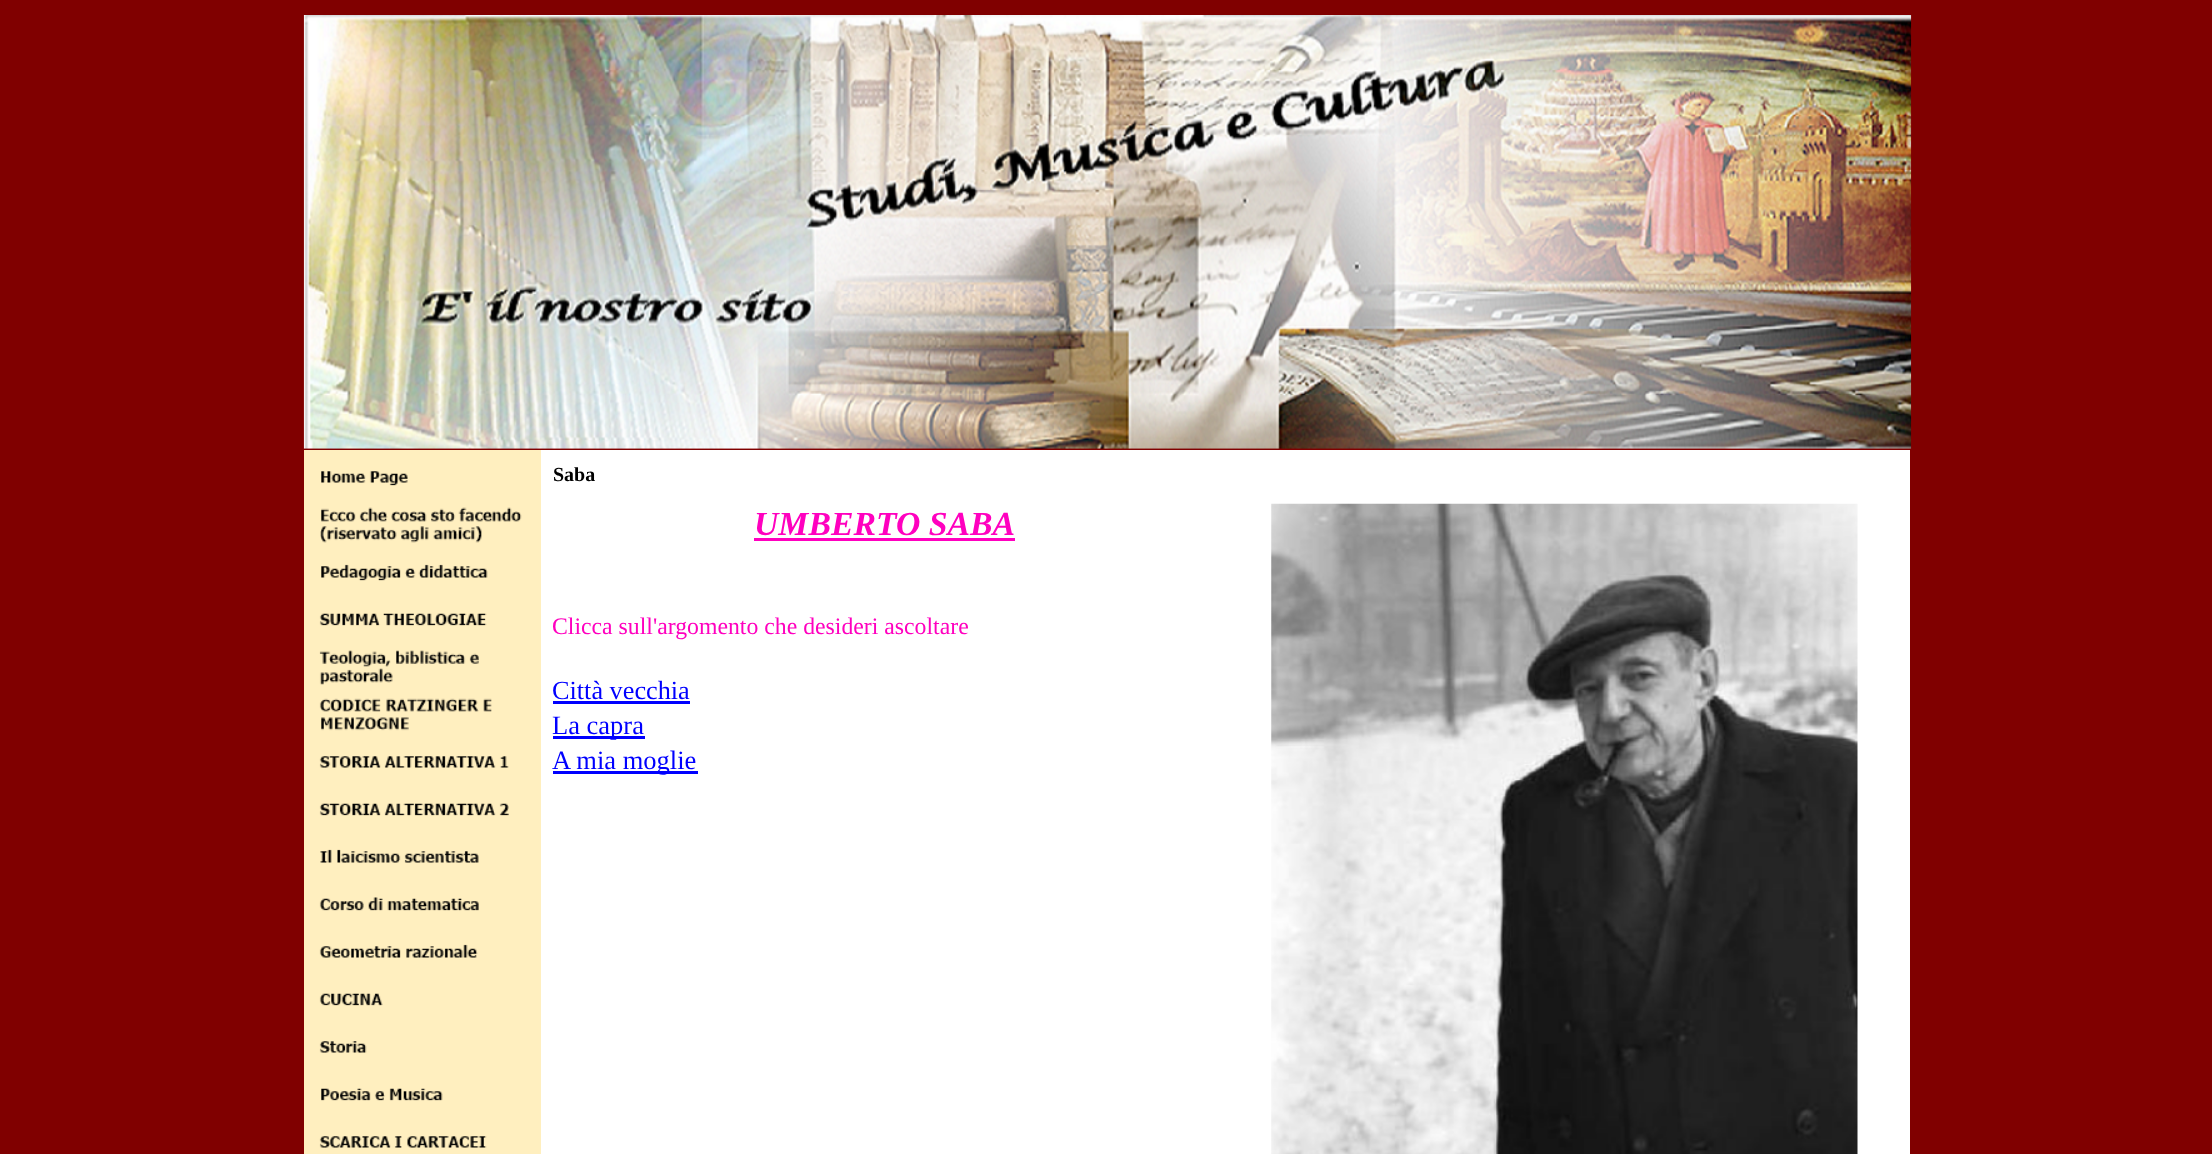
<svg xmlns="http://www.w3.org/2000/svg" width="2212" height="1154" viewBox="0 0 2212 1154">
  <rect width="100%" height="100%" fill="#800000"/>
  <image x="303" y="15" width="1609" height="434" href="img1.png"/>
  <rect x="304" y="450" width="237" height="704" fill="#ffefbf"/>
  <rect x="541" y="450" width="1369" height="704" fill="#ffffff"/>
  <image x="321" y="471" width="87" height="15" href="img2.png"/>
  <image x="320" y="507" width="202" height="36" href="img3.png"/>
  <image x="321" y="564" width="167" height="17" href="img4.png"/>
  <image x="319" y="613" width="168" height="13" href="img5.png"/>
  <image x="319" y="650" width="160" height="35" href="img6.png"/>
  <image x="319" y="698" width="173" height="33" href="img7.png"/>
  <image x="319" y="756" width="190" height="12" href="img8.png"/>
  <image x="319" y="803" width="190" height="13" href="img9.png"/>
  <image x="320" y="849" width="159" height="14" href="img10.png"/>
  <image x="319" y="897" width="160" height="14" href="img11.png"/>
  <image x="319" y="944" width="159" height="14" href="img12.png"/>
  <image x="319" y="993" width="64" height="13" href="img13.png"/>
  <image x="319" y="1041" width="48" height="12" href="img14.png"/>
  <image x="321" y="1088" width="122" height="13" href="img15.png"/>
  <image x="319" y="1136" width="168" height="12" href="img16.png"/>
  <text x="553" y="481" font-family="Liberation Serif" font-size="20" font-weight="bold" fill="#000000">Saba</text>
  <text x="754" y="535" font-family="Liberation Serif" font-size="33.75" font-weight="bold" font-style="italic" fill="#ff00bf">UMBERTO SABA</text>
  <rect x="754" y="538" width="261" height="3" fill="#ff00bf"/>
  <text x="552" y="634" font-family="Liberation Serif" font-size="23.75" fill="#ff00bf">Clicca sull'argomento che desideri ascoltare</text>
  <text x="552" y="699" font-family="Liberation Serif" font-size="26.25" fill="#0000ff">Città vecchia</text>
  <rect x="553" y="701" width="137" height="3" fill="#0000ff"/>
  <rect x="553" y="736" width="92" height="3" fill="#0000ff"/>
  <text x="552" y="734" font-family="Liberation Serif" font-size="26.5" fill="#0000ff">La capra</text>
  <rect x="553" y="771" width="145" height="3" fill="#0000ff"/>
  <text x="552" y="769" font-family="Liberation Serif" font-size="26.5" fill="#0000ff">A mia moglie</text>
  <image x="1271" y="503" width="587" height="651" href="img17.png"/>
</svg>
